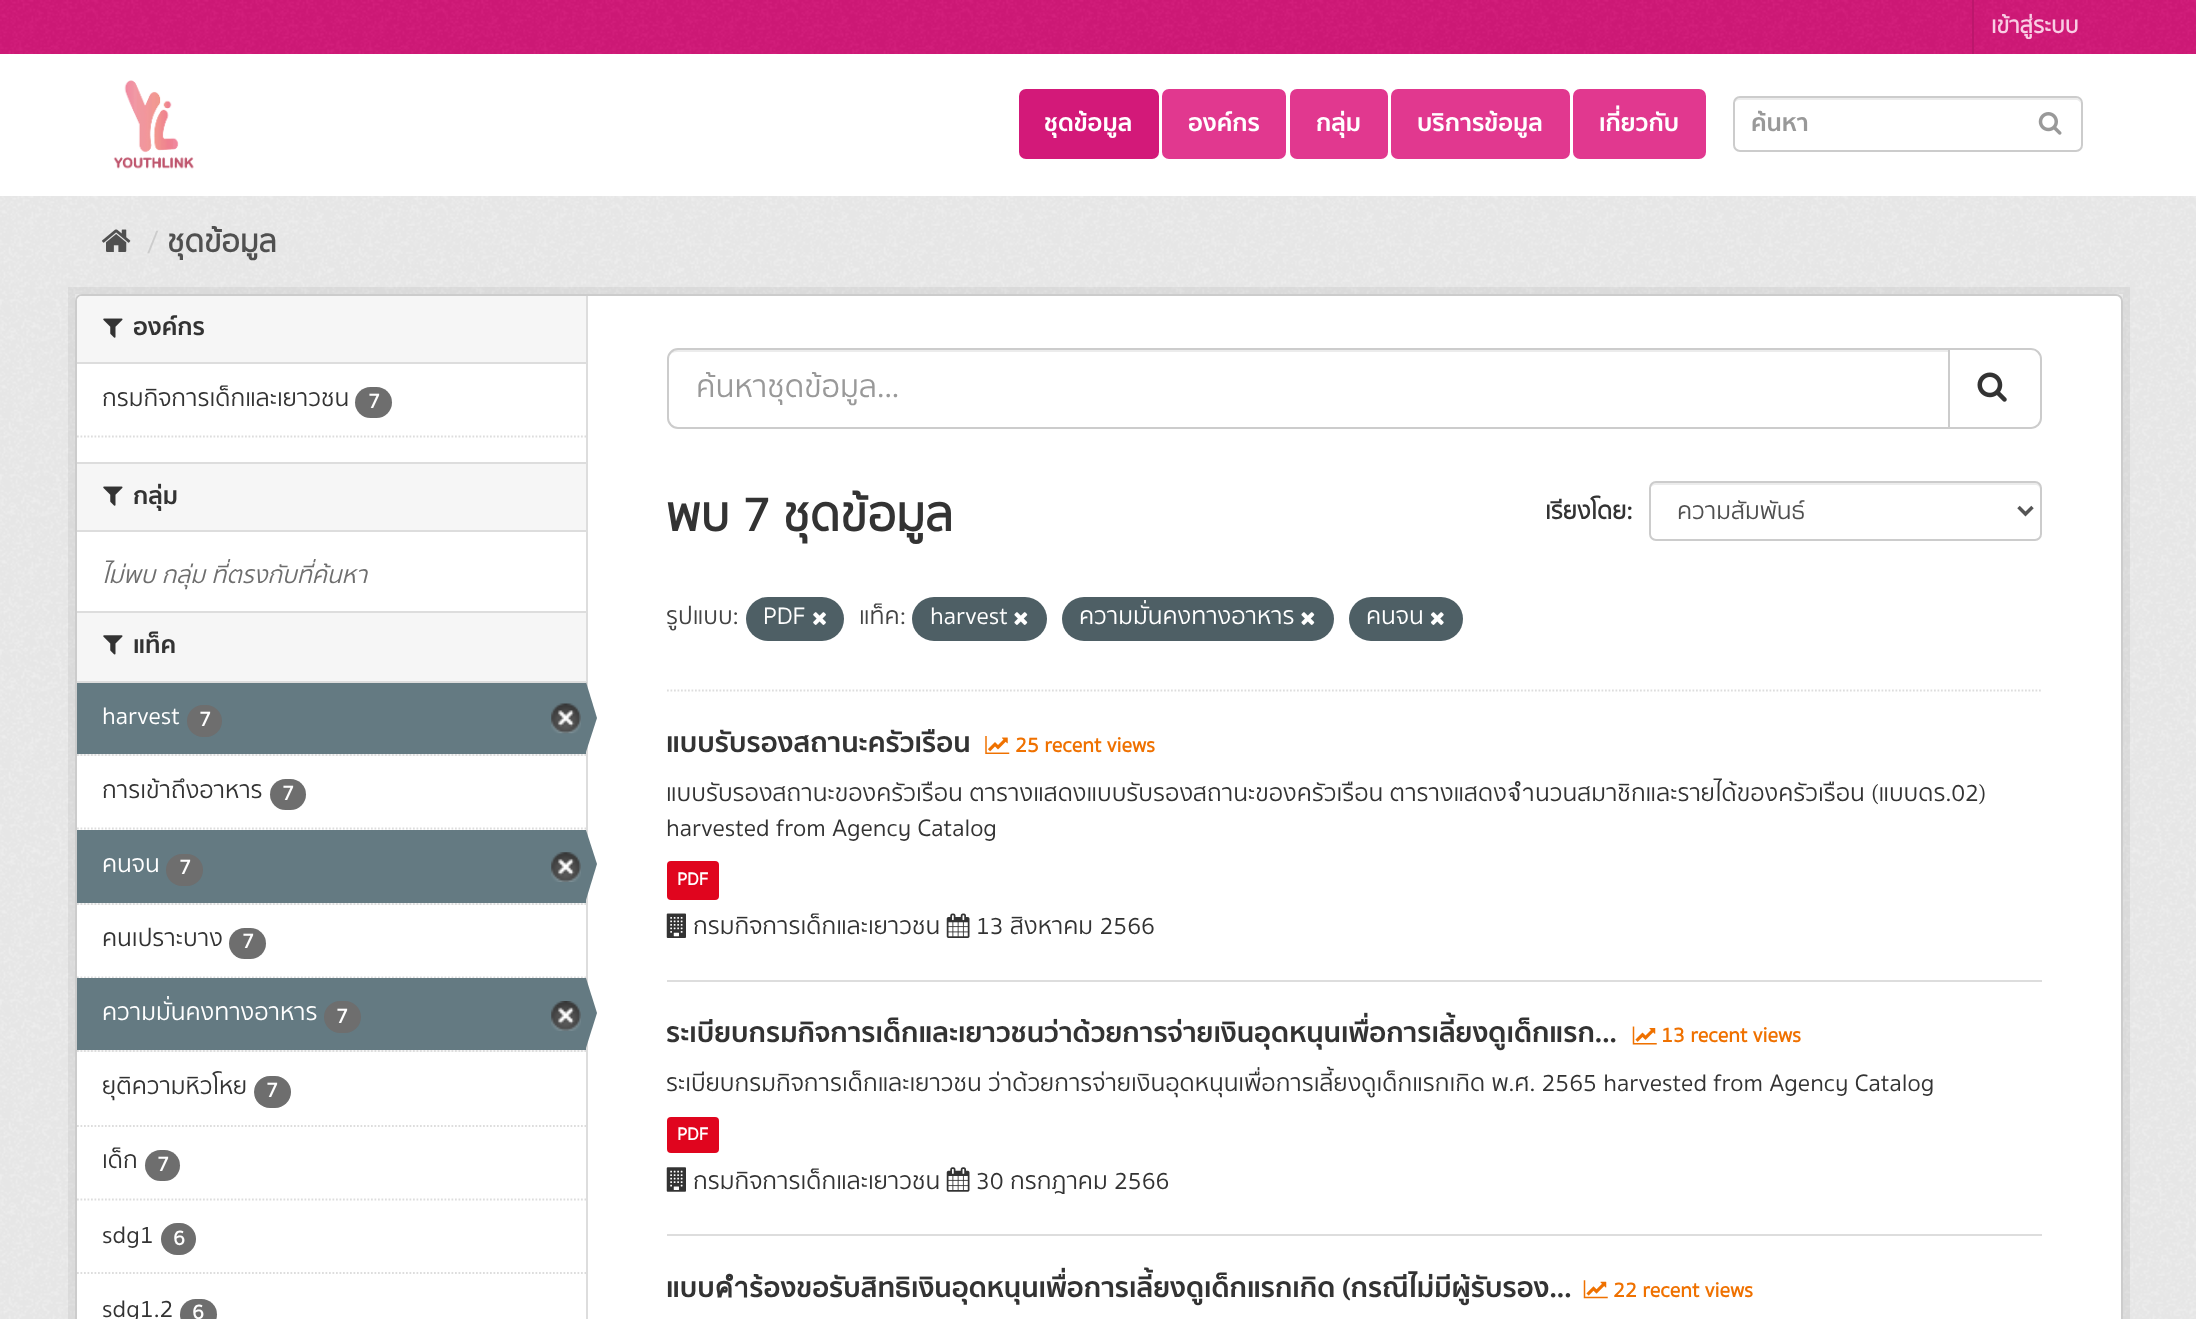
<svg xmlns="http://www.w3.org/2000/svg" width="2196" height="1319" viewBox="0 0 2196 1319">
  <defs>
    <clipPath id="clip1"><rect x="1752" y="105" width="311" height="39"/></clipPath>
    <clipPath id="clip2"><rect x="697" y="366" width="1223" height="45"/></clipPath>
  </defs>
  <rect width="100%" height="100%" fill="#ffffff"/>
  <rect x="0" y="0" width="2196" height="54" fill="#d31979"/>
  <image x="0" y="0" width="2196" height="54" href="img1.png"/>
  <rect x="1972" y="0" width="2" height="54" fill="#bc176c"/>
  <text x="1991" y="33" font-family="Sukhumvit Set" font-size="23" font-weight="bold" fill="#f9cde4">เข้าสู่ระบบ</text>
  <image x="113" y="80" width="81" height="89" href="img2.png"/>
  <rect x="1019" y="89" width="140" height="70" rx="7" fill="#d31979"/>
  <text x="1044" y="131" font-family="'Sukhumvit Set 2'" font-size="24.5" font-weight="bold" fill="#ffffff">ชุดข้อมูล</text>
  <rect x="1162" y="89" width="124" height="70" rx="7" fill="#e1388f"/>
  <text x="1188" y="131" font-family="'Sukhumvit Set 2'" font-size="24.5" font-weight="bold" fill="#ffffff">องค์กร</text>
  <rect x="1290" y="89" width="98" height="70" rx="7" fill="#e1388f"/>
  <text x="1316" y="131" font-family="'Sukhumvit Set 2'" font-size="24.5" font-weight="bold" fill="#ffffff">กลุ่ม</text>
  <rect x="1391" y="89" width="179" height="70" rx="7" fill="#e1388f"/>
  <text x="1417" y="131" font-family="'Sukhumvit Set 2'" font-size="24.5" font-weight="bold" fill="#ffffff">บริการข้อมูล</text>
  <rect x="1573" y="89" width="133" height="70" rx="7" fill="#e1388f"/>
  <text x="1599" y="131" font-family="'Sukhumvit Set 2'" font-size="24.5" font-weight="bold" fill="#ffffff">เกี่ยวกับ</text>
  <path d="M1740 100H2076C2078 100 2081 102 2081 105C2081 102 2080 98 2076 98H1739C1735 98 1734 102 1734 105C1734 102 1737 100 1740 100Z" fill="#ececec"/>
  <rect x="1734" y="97" width="348" height="54" rx="6" fill="none" stroke="#cccccc" stroke-width="2"/>
  <g clip-path="url(#clip1)">
    <text x="1751" y="131" font-family="'Sukhumvit Set 2'" font-size="24.5" font-weight="bold" fill="#999999">ค้นหา</text>
  </g>
  <image x="2038" y="112" width="24" height="23" href="img3.png"/>
  <rect x="0" y="196" width="2196" height="1123" fill="#eeeeee"/>
  <image x="0" y="196" width="2196" height="1123" href="img4.png"/>
  <image x="102" y="229" width="29" height="23" href="img5.png"/>
  <text x="147" y="252" font-family="Sukhumvit Set" font-size="31.5" fill="#cccccc">/</text>
  <text x="167" y="252" font-family="Sukhumvit Set" font-size="31.5" font-weight="bold" fill="#505050">ชุดข้อมูล</text>
  <rect x="71.5" y="290.5" width="2055" height="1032" fill="none" stroke="#000000" stroke-opacity="0.05" stroke-width="7"/>
  <rect x="76" y="295" width="2046" height="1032" rx="6" fill="#ffffff" stroke="#cccccc" stroke-width="2"/>
  <path d="M82 296H586V364H77V301C77 298 79 296 82 296Z" fill="#f6f6f6"/>
  <rect x="77" y="362" width="509" height="2" fill="#dddddd"/>
  <image x="103" y="318" width="20" height="20" href="img6.png"/>
  <text x="133" y="335" font-family="'Sukhumvit Set 2'" font-size="24.5" font-weight="bold" fill="#333333">องค์กร</text>
  <text x="102" y="406" font-family="Sukhumvit Set" font-size="24.5" fill="#333333">กรมกิจการเด็กและเยาวชน</text>
  <rect x="355" y="387" width="37" height="31" rx="15.5" fill="#6e6e6e"/>
  <text x="368" y="408" font-family="Sukhumvit Set" font-size="21" font-weight="bold" fill="#ffffff">7</text>
  <path d="M77 436.5H586" fill="none" stroke="#dddddd" stroke-width="1.8" stroke-dasharray="1.75 1.75"/>
  <rect x="77" y="464" width="509" height="66" fill="#f6f6f6"/>
  <rect x="77" y="462" width="509" height="2" fill="#dddddd"/>
  <rect x="77" y="530" width="509" height="2" fill="#dddddd"/>
  <image x="103" y="486" width="20" height="20" href="img6.png"/>
  <text x="133" y="504" font-family="'Sukhumvit Set 2'" font-size="24.5" font-weight="bold" fill="#333333">กลุ่ม</text>
  <text x="102" y="583" font-family="Sukhumvit Set" font-size="24.5" font-style="italic" fill="#6e6e6e">ไม่พบ กลุ่ม ที่ตรงกับที่ค้นหา</text>
  <rect x="77" y="613" width="509" height="68" fill="#f6f6f6"/>
  <rect x="77" y="611" width="509" height="2" fill="#dddddd"/>
  <rect x="77" y="681" width="509" height="2" fill="#dddddd"/>
  <image x="103" y="635" width="20" height="20" href="img7.png"/>
  <text x="133" y="653" font-family="'Sukhumvit Set 2'" font-size="24.5" font-weight="bold" fill="#333333">แท็ค</text>
  <rect x="77" y="754" width="509" height="2" fill="#f6f6f6"/>
  <path d="M77 755H586" fill="none" stroke="#dddddd" stroke-width="1.8" stroke-dasharray="1.75 1.75"/>
  <rect x="77" y="683" width="509" height="71" fill="#647a82"/>
  <text x="102" y="724" font-family="Sukhumvit Set" font-size="24.5" fill="#ffffff">harvest</text>
  <rect x="187" y="705" width="35" height="32" rx="16" fill="#6e6e6e"/>
  <text x="199" y="726" font-family="Sukhumvit Set" font-size="21" font-weight="bold" fill="#ffffff">7</text>
  <image x="551" y="703" width="30" height="31" href="img8.png"/>
  <rect x="586" y="296" width="2" height="1023" fill="#dddddd"/>
  <path d="M586 752V682L597 718Z" fill="#647a82"/>
  <path d="M77 828.5H586" fill="none" stroke="#dddddd" stroke-width="1.8" stroke-dasharray="1.75 1.75"/>
  <text x="102" y="798" font-family="Sukhumvit Set" font-size="24.5" fill="#333333">การเข้าถึงอาหาร</text>
  <rect x="270" y="779" width="36" height="31" rx="15.5" fill="#6e6e6e"/>
  <text x="282" y="800" font-family="Sukhumvit Set" font-size="21" font-weight="bold" fill="#ffffff">7</text>
  <rect x="77" y="903" width="509" height="2" fill="#f6f6f6"/>
  <path d="M77 904H586" fill="none" stroke="#dddddd" stroke-width="1.8" stroke-dasharray="1.75 1.75"/>
  <rect x="77" y="830" width="509" height="73" fill="#647a82"/>
  <text x="102" y="872" font-family="Sukhumvit Set" font-size="24.5" fill="#ffffff">คนจน</text>
  <rect x="166" y="854" width="37" height="32" rx="16" fill="#6e6e6e"/>
  <text x="179" y="874" font-family="Sukhumvit Set" font-size="21" font-weight="bold" fill="#ffffff">7</text>
  <image x="551" y="852" width="30" height="30" href="img9.png"/>
  <path d="M586 900V830L597 864Z" fill="#647a82"/>
  <path d="M77 977.5H586" fill="none" stroke="#dddddd" stroke-width="1.8" stroke-dasharray="1.75 1.75"/>
  <text x="102" y="946" font-family="Sukhumvit Set" font-size="24.5" fill="#333333">คนเปราะบาง</text>
  <rect x="229" y="928" width="37" height="31" rx="15.5" fill="#6e6e6e"/>
  <text x="242" y="948" font-family="Sukhumvit Set" font-size="21" font-weight="bold" fill="#ffffff">7</text>
  <rect x="77" y="1050" width="509" height="2" fill="#f6f6f6"/>
  <path d="M77 1051H586" fill="none" stroke="#dddddd" stroke-width="1.8" stroke-dasharray="1.75 1.75"/>
  <rect x="77" y="978" width="509" height="72" fill="#647a82"/>
  <text x="102" y="1020" font-family="Sukhumvit Set" font-size="24.5" fill="#ffffff">ความมั่นคงทางอาหาร</text>
  <rect x="324" y="1001" width="37" height="32" rx="16" fill="#6e6e6e"/>
  <text x="336" y="1023" font-family="Sukhumvit Set" font-size="21" font-weight="bold" fill="#ffffff">7</text>
  <image x="551" y="1001" width="30" height="30" href="img10.png"/>
  <path d="M586 1048V978L597 1013Z" fill="#647a82"/>
  <path d="M77 1126H586" fill="none" stroke="#dddddd" stroke-width="1.8" stroke-dasharray="1.75 1.75"/>
  <text x="102" y="1094" font-family="Sukhumvit Set" font-size="24.5" fill="#333333">ยุติความหิวโหย</text>
  <rect x="254" y="1076" width="37" height="32" rx="16" fill="#6e6e6e"/>
  <text x="266" y="1097" font-family="Sukhumvit Set" font-size="21" font-weight="bold" fill="#ffffff">7</text>
  <path d="M77 1199.5H586" fill="none" stroke="#dddddd" stroke-width="1.8" stroke-dasharray="1.75 1.75"/>
  <text x="102" y="1168" font-family="Sukhumvit Set" font-size="24.5" fill="#333333">เด็ก</text>
  <rect x="145" y="1150" width="35" height="31" rx="15.5" fill="#6e6e6e"/>
  <text x="157" y="1171" font-family="Sukhumvit Set" font-size="21" font-weight="bold" fill="#ffffff">7</text>
  <path d="M77 1273H586" fill="none" stroke="#dddddd" stroke-width="1.8" stroke-dasharray="1.75 1.75"/>
  <text x="102" y="1243" font-family="Sukhumvit Set" font-size="24.5" fill="#333333">sdg1</text>
  <rect x="161" y="1223" width="35" height="32" rx="16" fill="#6e6e6e"/>
  <text x="173" y="1245" font-family="Sukhumvit Set" font-size="21" font-weight="bold" fill="#ffffff">6</text>
  <text x="102" y="1317" font-family="Sukhumvit Set" font-size="24.5" fill="#333333">sdg1.2</text>
  <rect x="180" y="1299" width="37" height="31" rx="15.5" fill="#6e6e6e"/>
  <text x="192" y="1319" font-family="Sukhumvit Set" font-size="21" font-weight="bold" fill="#ffffff">6</text>
  <path d="M667 690.5H2042" fill="none" stroke="#dddddd" stroke-width="1.8" stroke-dasharray="1.75 1.75"/>
  <path d="M677 352H1948V350H678C674 350 671 352 670 355C671 353 674 352 677 352Z" fill="#ececec"/>
  <path d="M678 349H1949V428H678C672.5 428 668 423.5 668 418V359C668 353.5 672.5 349 678 349Z" fill="none" stroke="#cccccc" stroke-width="2"/>
  <g clip-path="url(#clip2)">
    <text x="696" y="397" font-family="Sukhumvit Set" font-size="31.5" fill="#999999">ค้นหาชุดข้อมูล...</text>
  </g>
  <path d="M1949 349H2031C2036.5 349 2041 353.5 2041 359V418C2041 423.5 2036.5 428 2031 428H1949Z" fill="#ffffff" stroke="#cccccc" stroke-width="2"/>
  <image x="1977" y="372" width="30" height="30" href="img11.png"/>
  <text x="666" y="531" font-family="Sukhumvit Set" font-size="49" font-weight="bold" fill="#333333">พบ 7 ชุดข้อมูล</text>
  <text x="1545" y="519" font-family="Sukhumvit Set" font-size="24.5" font-weight="bold" fill="#333333">เรียงโดย:</text>
  <path d="M1656 485H2035C2038 485 2040 487 2040 490V537C2041 536 2041 535 2041 534V488C2041 485 2039 483 2036 483H1655C1652 483 1650 485 1650 488V490C1650 487 1653 485 1656 485Z" fill="#ececec"/>
  <rect x="1650" y="482" width="391" height="58" rx="6" fill="none" stroke="#cccccc" stroke-width="2"/>
  <path d="M2018.5 507L2025.5 514L2032.5 507" fill="none" stroke="#555555" stroke-width="3.5"/>
  <text x="1677" y="519" font-family="Sukhumvit Set" font-size="24.5" fill="#505050">ความสัมพันธ์</text>
  <text x="666" y="624" font-family="Sukhumvit Set" font-size="24.5" fill="#444444">รูปแบบ:</text>
  <rect x="746" y="597" width="98" height="44" rx="22" fill="#4e5f65"/>
  <text x="763" y="624" font-family="Sukhumvit Set" font-size="24.5" fill="#ffffff">PDF</text>
  <image x="813" y="612" width="13" height="13" href="img12.png"/>
  <text x="859" y="624" font-family="Sukhumvit Set" font-size="24.5" fill="#444444">แท็ค:</text>
  <rect x="912" y="597" width="135" height="44" rx="22" fill="#4e5f65"/>
  <text x="930" y="624" font-family="Sukhumvit Set" font-size="24.5" fill="#ffffff">harvest</text>
  <image x="1014" y="612" width="14" height="13" href="img13.png"/>
  <rect x="1062" y="597" width="272" height="44" rx="22" fill="#4e5f65"/>
  <text x="1079" y="624" font-family="Sukhumvit Set" font-size="24.5" fill="#ffffff">ความมั่นคงทางอาหาร</text>
  <image x="1301" y="612" width="14" height="13" href="img14.png"/>
  <rect x="1349" y="597" width="114" height="44" rx="22" fill="#4e5f65"/>
  <text x="1366" y="624" font-family="Sukhumvit Set" font-size="24.5" fill="#ffffff">คนจน</text>
  <image x="1430" y="612" width="14" height="13" href="img15.png"/>
  <rect x="667" y="980" width="1375" height="2" fill="#dddddd"/>
  <text x="666" y="752" font-family="'Sukhumvit Set 2'" font-size="28" font-weight="bold" fill="#333333">แบบรับรองสถานะครัวเรือน</text>
  <image x="985" y="736" width="25" height="18" href="img16.png"/>
  <text x="1015" y="752" font-family="Sukhumvit Set" font-size="21" font-weight="bold" fill="#ef7100">25 recent views</text>
  <text x="666" y="801" font-family="Sukhumvit Set" font-size="24.5" fill="#333333">แบบรับรองสถานะของครัวเรือน ตารางแสดงแบบรับรองสถานะของครัวเรือน ตารางแสดงจำนวนสมาชิกและรายได้ของครัวเรือน (แบบดร.02)</text>
  <text x="666" y="836" font-family="Sukhumvit Set" font-size="24.5" fill="#333333">harvested from Agency Catalog</text>
  <rect x="667" y="861" width="52" height="39" rx="4" fill="#e0051e"/>
  <text x="677" y="885" font-family="Sukhumvit Set" font-size="18" font-weight="bold" fill="#ffffff">PDF</text>
  <image x="666" y="913" width="20" height="25" href="img17.png"/>
  <text x="693" y="934" font-family="Sukhumvit Set" font-size="24.5" fill="#333333">กรมกิจการเด็กและเยาวชน</text>
  <image x="946" y="913" width="24" height="25" href="img18.png"/>
  <text x="976" y="934" font-family="Sukhumvit Set" font-size="24.5" fill="#333333">13 สิงหาคม 2566</text>
  <rect x="667" y="1234" width="1375" height="2" fill="#dddddd"/>
  <text x="666" y="1042" font-family="'Sukhumvit Set 2'" font-size="28" font-weight="bold" fill="#333333">ระเบียบกรมกิจการเด็กและเยาวชนว่าด้วยการจ่ายเงินอุดหนุนเพื่อการเลี้ยงดูเด็กแรก...</text>
  <image x="1632" y="1026" width="25" height="19" href="img19.png"/>
  <text x="1661" y="1042" font-family="Sukhumvit Set" font-size="21" font-weight="bold" fill="#ef7100">13 recent views</text>
  <text x="666" y="1091" font-family="Sukhumvit Set" font-size="24.5" fill="#333333">ระเบียบกรมกิจการเด็กและเยาวชน ว่าด้วยการจ่ายเงินอุดหนุนเพื่อการเลี้ยงดูเด็กแรกเกิด พ.ศ. 2565 harvested from Agency Catalog</text>
  <rect x="667" y="1117" width="52" height="36" rx="4" fill="#e0051e"/>
  <text x="677" y="1140" font-family="Sukhumvit Set" font-size="18" font-weight="bold" fill="#ffffff">PDF</text>
  <image x="666" y="1167" width="20" height="25" href="img20.png"/>
  <text x="693" y="1189" font-family="Sukhumvit Set" font-size="24.5" fill="#333333">กรมกิจการเด็กและเยาวชน</text>
  <image x="946" y="1167" width="24" height="25" href="img21.png"/>
  <text x="976" y="1189" font-family="Sukhumvit Set" font-size="24.5" fill="#333333">30 กรกฎาคม 2566</text>
  <text x="666" y="1297" font-family="'Sukhumvit Set 2'" font-size="28" font-weight="bold" fill="#333333">แบบคำร้องขอรับสิทธิเงินอุดหนุนเพื่อการเลี้ยงดูเด็กแรกเกิด (กรณีไม่มีผู้รับรอง...</text>
  <image x="1583" y="1280" width="25" height="19" href="img22.png"/>
  <text x="1613" y="1297" font-family="Sukhumvit Set" font-size="21" font-weight="bold" fill="#ef7100">22 recent views</text>
</svg>
